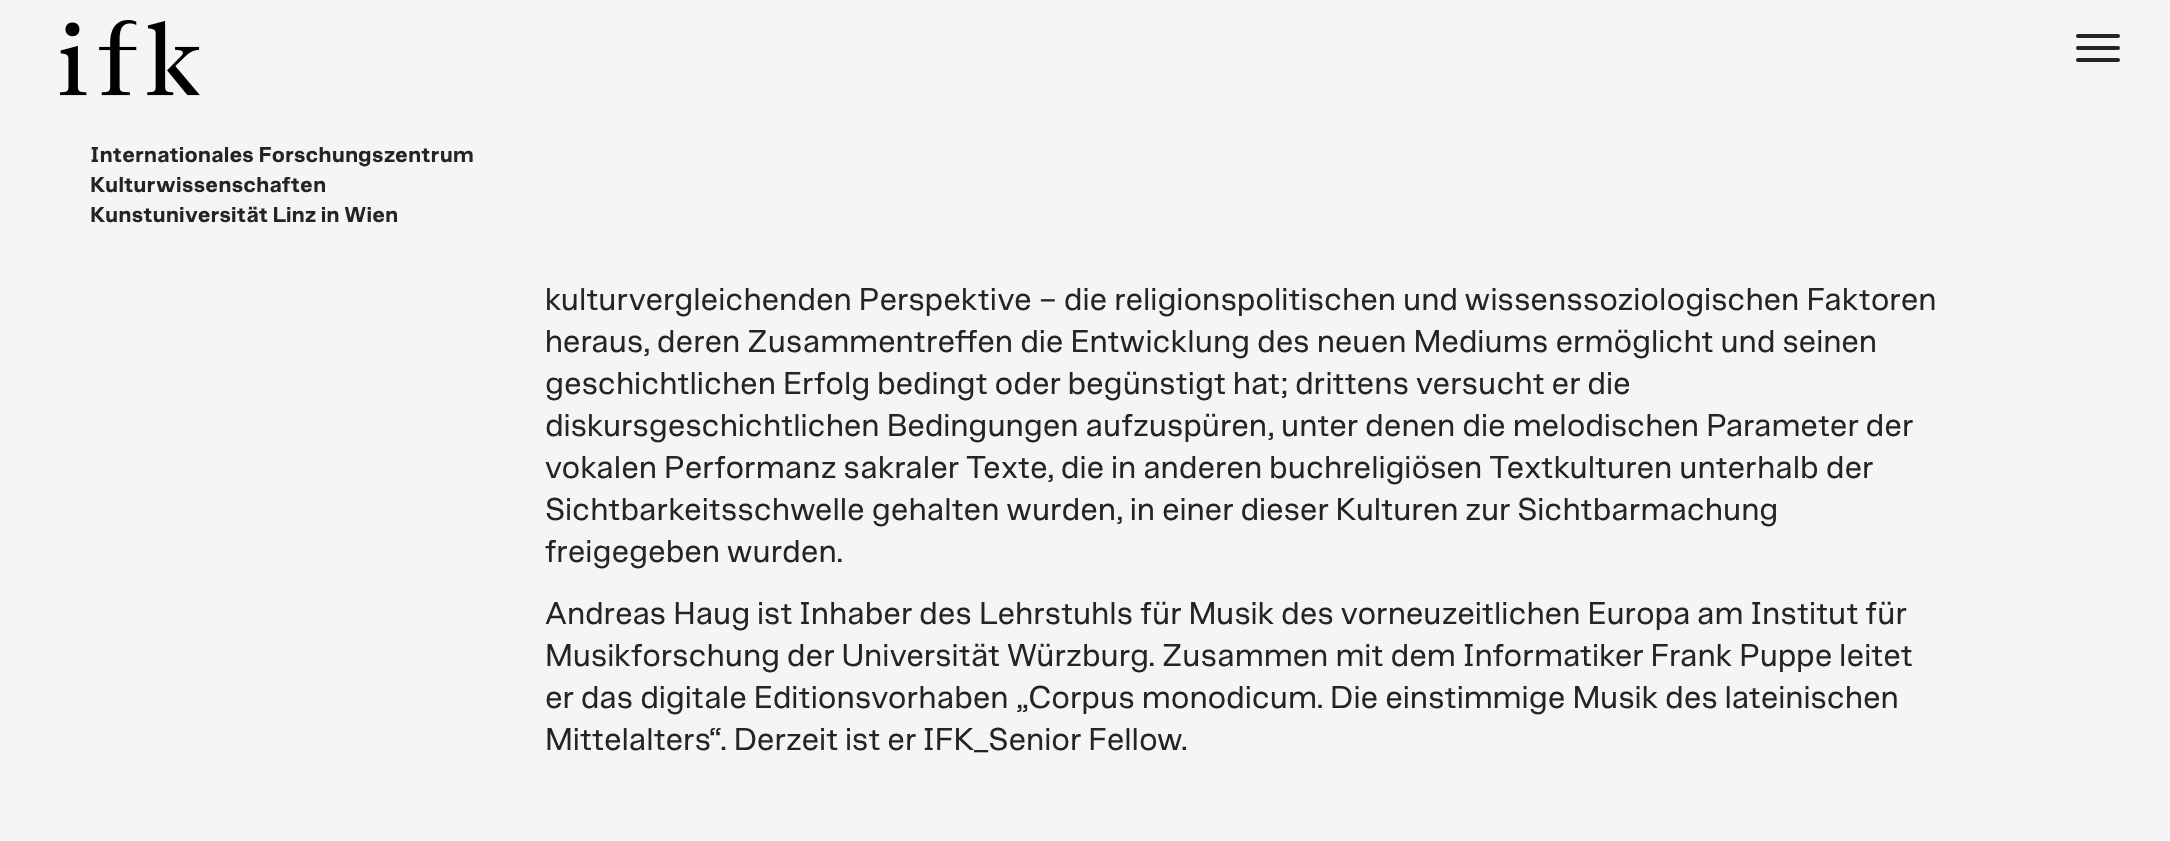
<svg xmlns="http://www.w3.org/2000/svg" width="2170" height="841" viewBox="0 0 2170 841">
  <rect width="100%" height="100%" fill="#f5f5f5"/>
  <image x="60" y="20" width="140" height="76" href="img1.png"/>
  <rect x="2076" y="34" width="44" height="4" rx="2" fill="#242424"/>
  <rect x="2076" y="46" width="44" height="4" rx="2" fill="#242424"/>
  <rect x="2076" y="58" width="44" height="4" rx="2" fill="#242424"/>
  <text x="90" y="162" font-family="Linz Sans" font-size="22" font-weight="bold" fill="#242424">Internationales Forschungszentrum</text>
  <text x="90" y="192" font-family="Linz Sans" font-size="22" font-weight="bold" fill="#242424">Kulturwissenschaften</text>
  <text x="90" y="222" font-family="Linz Sans" font-size="22" font-weight="bold" fill="#242424">Kunstuniversität Linz in Wien</text>
  <text x="545" y="310" font-family="Linz Sans" font-size="32" fill="#242424">kulturvergleichenden Perspektive – die religionspolitischen und wissenssoziologischen Faktoren</text>
  <text x="545" y="352" font-family="Linz Sans" font-size="32" fill="#242424">heraus, deren Zusammentreffen die Entwicklung des neuen Mediums ermöglicht und seinen</text>
  <text x="545" y="394" font-family="Linz Sans" font-size="32" fill="#242424">geschichtlichen Erfolg bedingt oder begünstigt hat; drittens versucht er die</text>
  <text x="545" y="436" font-family="Linz Sans" font-size="32" fill="#242424">diskursgeschichtlichen Bedingungen aufzuspüren, unter denen die melodischen Parameter der</text>
  <text x="545" y="478" font-family="Linz Sans" font-size="32" fill="#242424">vokalen Performanz sakraler Texte, die in anderen buchreligiösen Textkulturen unterhalb der</text>
  <text x="545" y="520" font-family="Linz Sans" font-size="32" fill="#242424">Sichtbarkeitsschwelle gehalten wurden, in einer dieser Kulturen zur Sichtbarmachung</text>
  <text x="545" y="562" font-family="Linz Sans" font-size="32" fill="#242424">freigegeben wurden.</text>
  <text x="545" y="624" font-family="Linz Sans" font-size="32" fill="#242424">Andreas Haug ist Inhaber des Lehrstuhls für Musik des vorneuzeitlichen Europa am Institut für</text>
  <text x="545" y="666" font-family="Linz Sans" font-size="32" fill="#242424">Musikforschung der Universität Würzburg. Zusammen mit dem Informatiker Frank Puppe leitet</text>
  <text x="545" y="708" font-family="Linz Sans" font-size="32" fill="#242424">er das digitale Editionsvorhaben „Corpus monodicum. Die einstimmige Musik des lateinischen</text>
  <text x="545" y="750" font-family="Linz Sans" font-size="32" fill="#242424">Mittelalters“. Derzeit ist er IFK_Senior Fellow.</text>
</svg>
